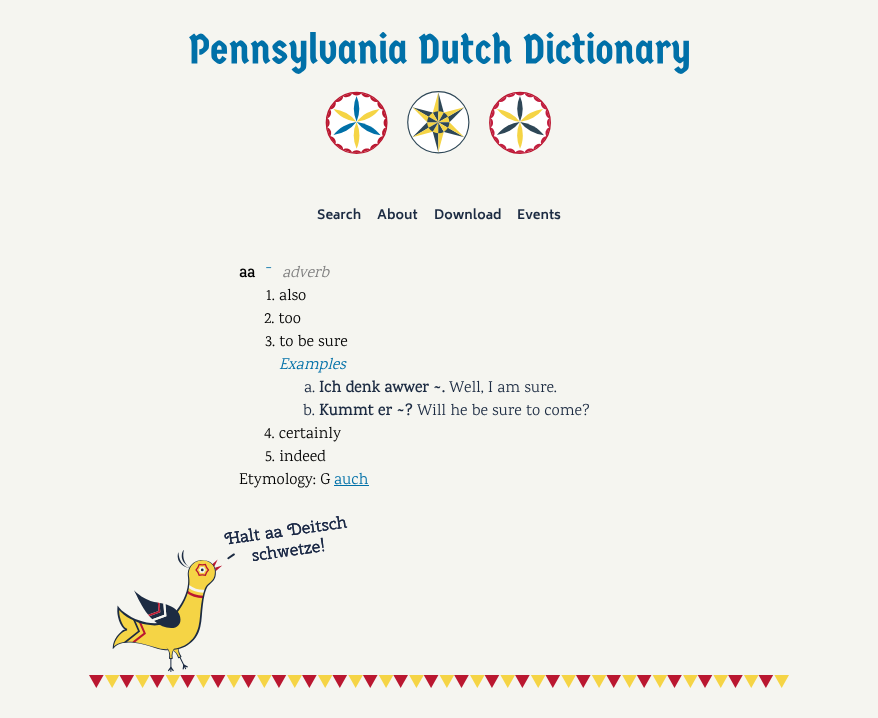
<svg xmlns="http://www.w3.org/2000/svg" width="878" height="718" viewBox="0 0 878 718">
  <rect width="100%" height="100%" fill="#f5f5f0"/>
  <image x="189" y="32" width="500" height="122" href="img1.png"/>
  <text x="317" y="219" font-family="Biryani" font-size="12.75" font-weight="bold" fill="#1c2b42">Search</text>
  <text x="377" y="219" font-family="Biryani" font-size="12.75" font-weight="bold" fill="#1c2b42">About</text>
  <text x="434" y="219" font-family="Biryani" font-size="12.75" font-weight="bold" fill="#1c2b42">Download</text>
  <text x="517" y="219" font-family="Biryani" font-size="12.75" font-weight="bold" fill="#1c2b42">Events</text>
  <text x="239" y="277" font-family="Karma" font-size="16" font-weight="bold" fill="#000000">aa</text>
  <text x="266" y="277" font-family="Liberation Serif" font-size="16" fill="#0070a8">ˉ</text>
  <text x="282" y="277" font-family="Karma" font-size="16" font-style="italic" fill="#808080">adverb</text>
  <text x="266" y="300" font-family="Karma" font-size="16" fill="#000000">1. also</text>
  <text x="264" y="323" font-family="Karma" font-size="16" fill="#000000">2. too</text>
  <text x="265" y="346" font-family="Karma" font-size="16" fill="#000000">3. to be sure</text>
  <text x="279" y="369" font-family="Karma" font-size="16" font-style="italic" fill="#0070a8">Examples</text>
  <text x="304" y="392" font-family="Karma" font-size="16" fill="#1c2b42">a.</text>
  <text x="319" y="392" font-family="Karma" font-size="16" font-weight="bold" fill="#1c2b42">Ich denk awwer ~.</text>
  <text x="449" y="392" font-family="Karma" font-size="16" fill="#1c2b42">Well, I am sure.</text>
  <text x="303" y="415" font-family="Karma" font-size="16" fill="#1c2b42">b.</text>
  <text x="319" y="415" font-family="Karma" font-size="16" font-weight="bold" fill="#1c2b42">Kummt er ~?</text>
  <text x="417" y="415" font-family="Karma" font-size="16" fill="#1c2b42">Will he be sure to come?</text>
  <text x="264" y="438" font-family="Karma" font-size="16" fill="#000000">4. certainly</text>
  <text x="265" y="461" font-family="Karma" font-size="16" fill="#000000">5. indeed</text>
  <text x="239" y="484" font-family="Karma" font-size="16" fill="#000000">Etymology: G</text>
  <text x="334" y="484" font-family="Karma" font-size="16" fill="#0070a8">auch</text>
  <rect x="334" y="485" width="35" height="1" fill="#0070a8"/>
  <image x="89" y="516" width="700" height="172" href="img2.png"/>
</svg>
